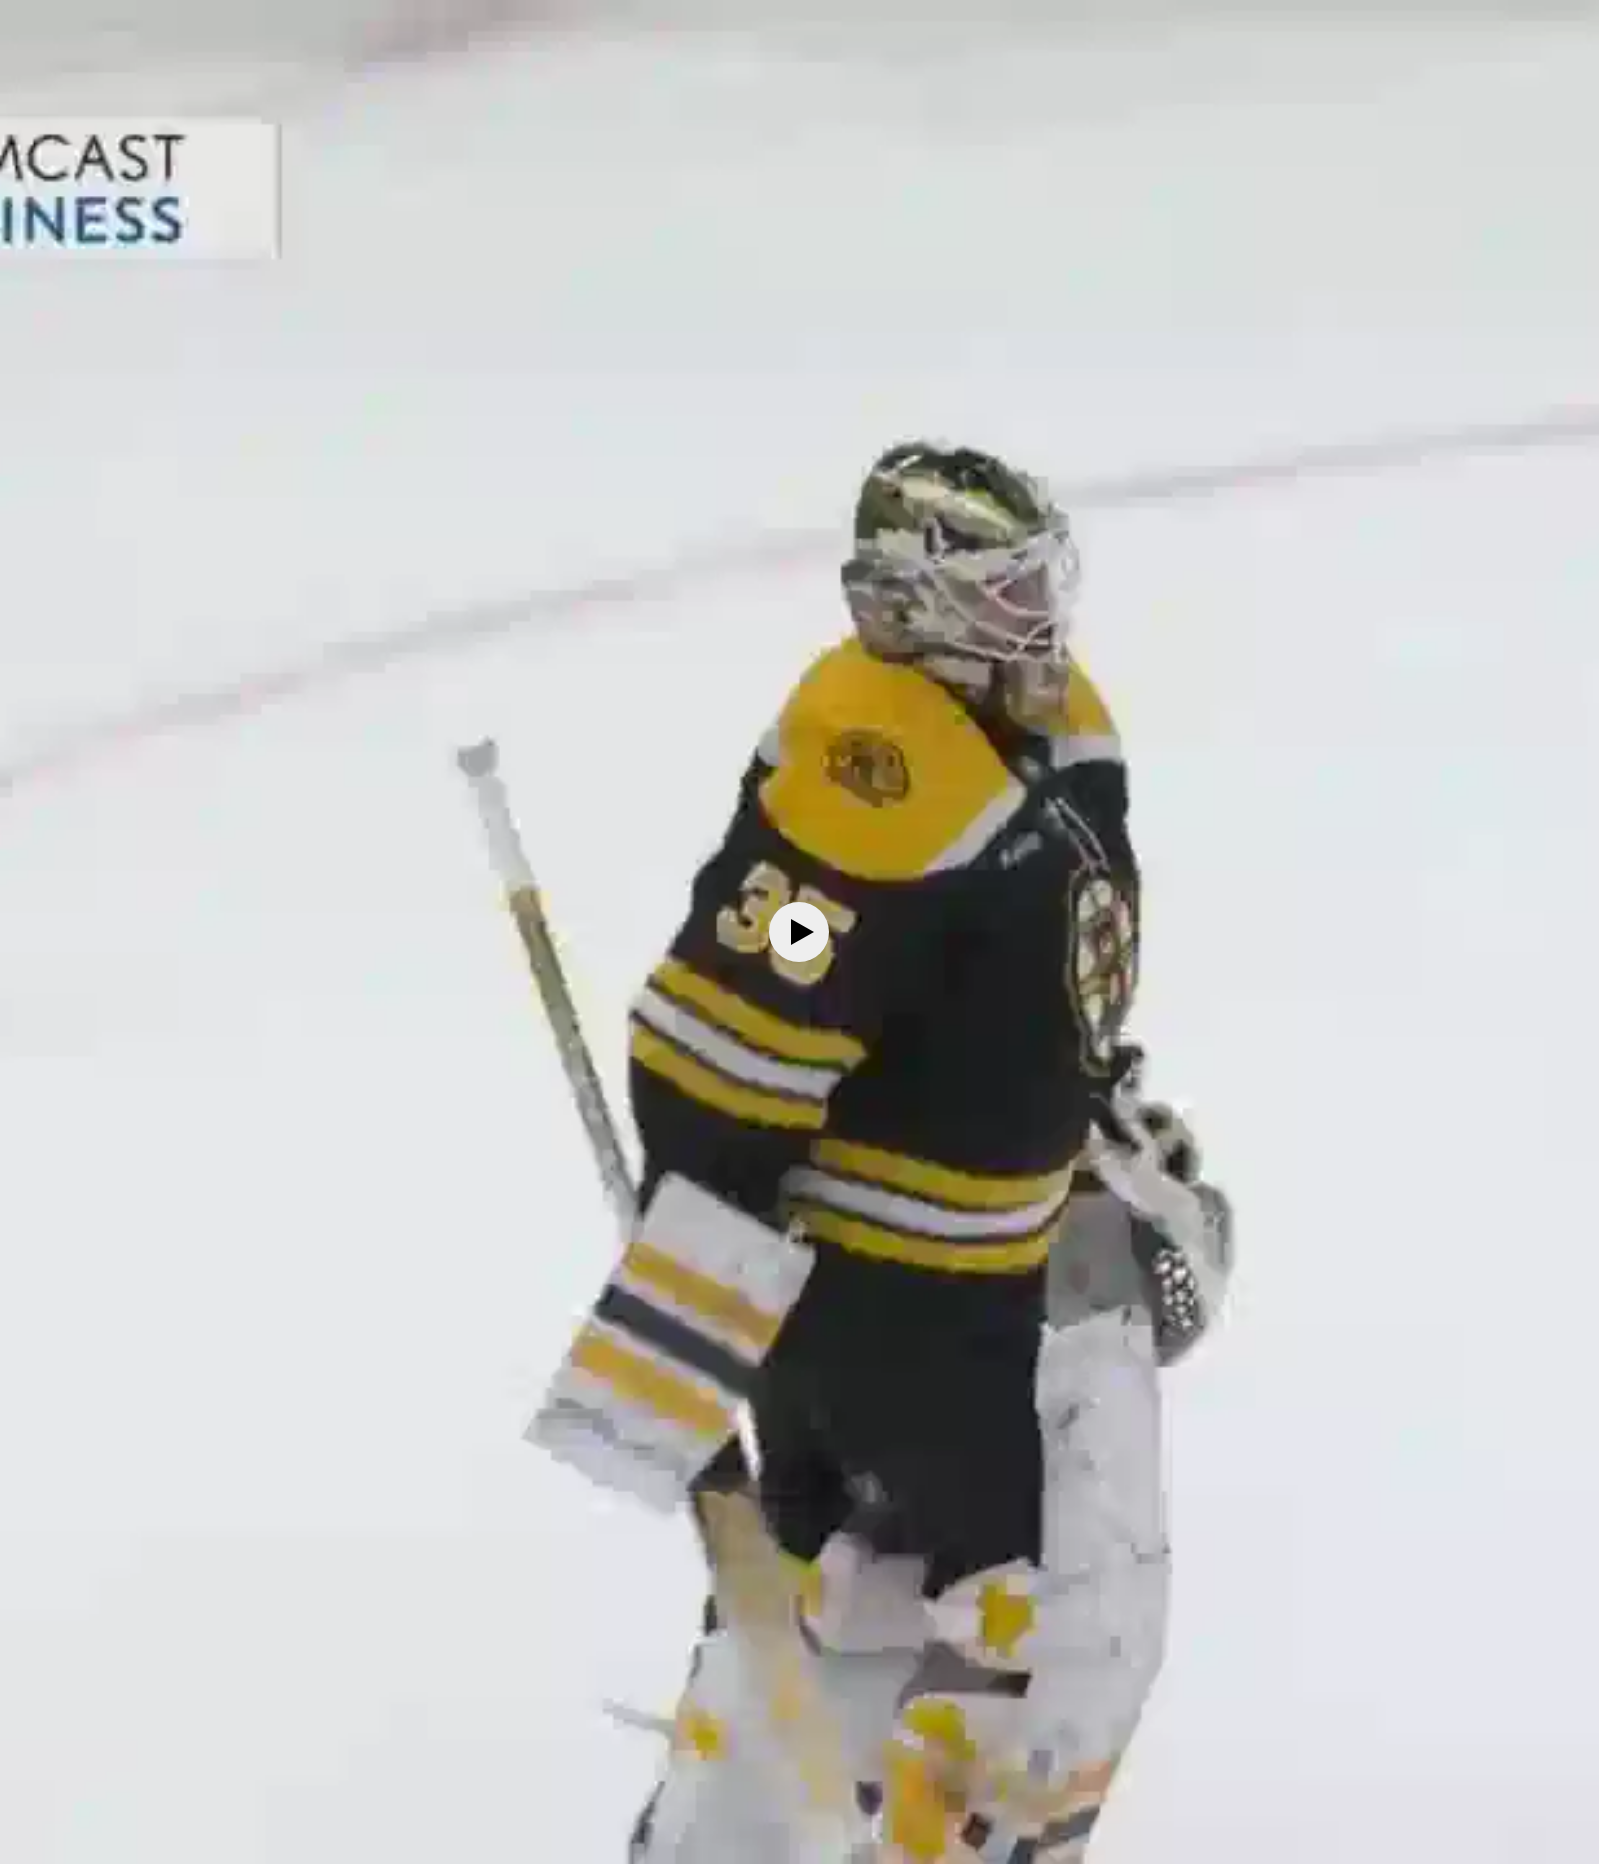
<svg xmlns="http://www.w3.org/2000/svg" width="1599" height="1864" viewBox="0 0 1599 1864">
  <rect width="100%" height="100%" fill="#ffffff"/>
  <image x="0" y="0" width="1599" height="1864" href="img1.png"/>
  <circle cx="799" cy="932" r="30" fill="#eeeeee"/>
  <path d="M814 932L791 919V945Z" fill="#000000"/>
</svg>
